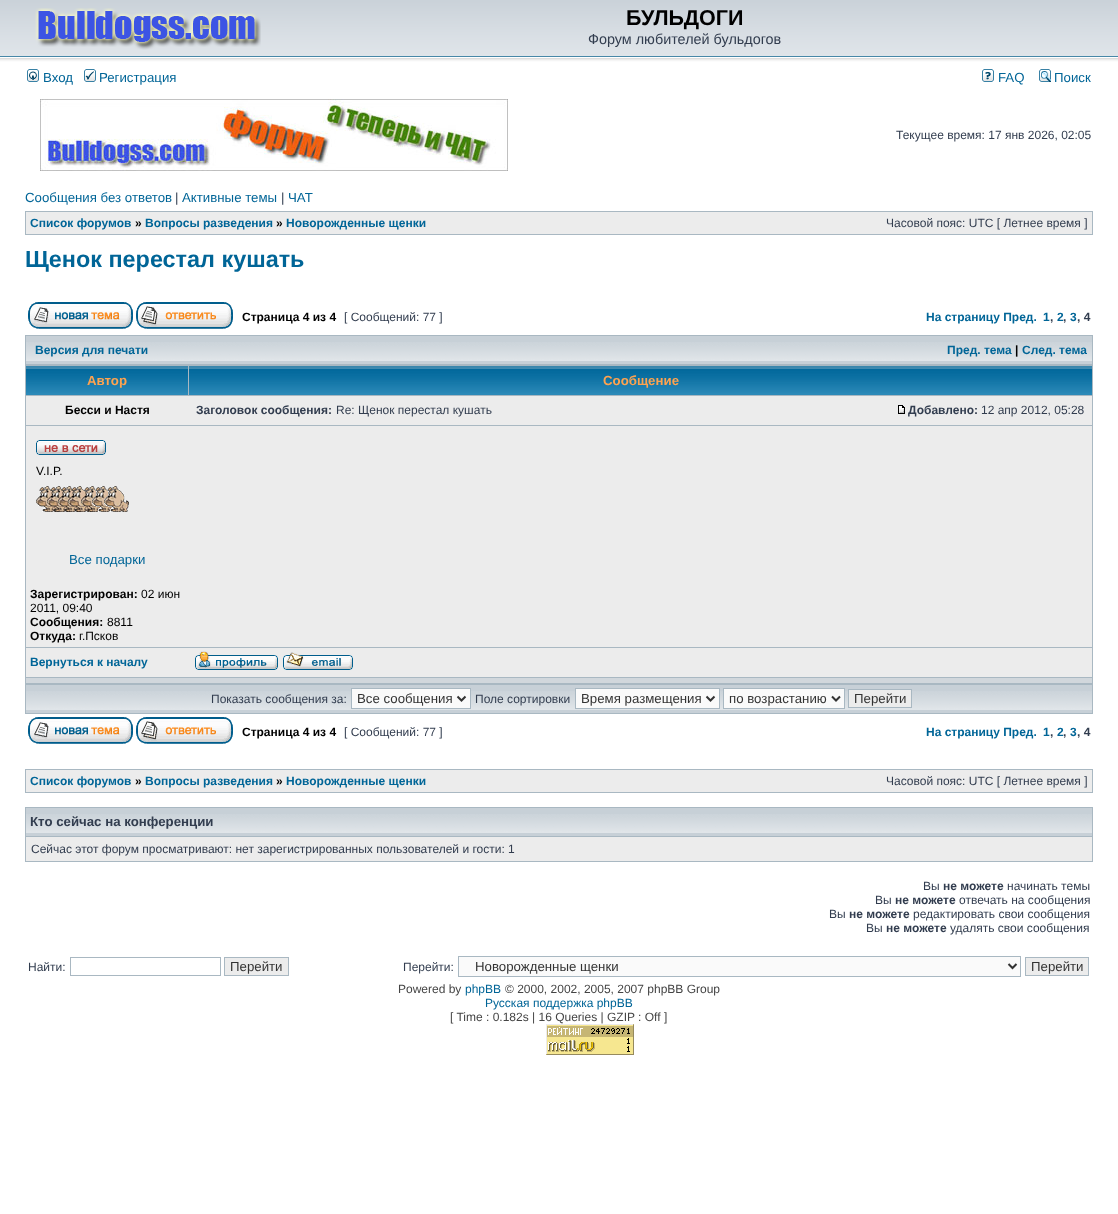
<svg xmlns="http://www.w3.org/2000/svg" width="1118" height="1214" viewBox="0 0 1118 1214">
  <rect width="100%" height="100%" fill="#ffffff"/>
  <image x="0" y="0" width="1118" height="67" href="img1.png"/>
  <image x="35" y="8" width="226" height="42" href="img2.png"/>
  <text x="626" y="25" font-family="Liberation Sans" font-size="21.5" font-weight="bold" fill="#000000">БУЛЬДОГИ</text>
  <text x="588" y="44" font-family="Liberation Sans" font-size="14.4" fill="#323d4f">Форум любителей бульдогов</text>
  <image x="27" y="69" width="12" height="13" href="img3.png"/>
  <text x="43" y="82" font-family="Liberation Sans" font-size="13.25" fill="#006597">Вход</text>
  <image x="84" y="69" width="12" height="13" href="img4.png"/>
  <text x="99" y="82" font-family="Liberation Sans" font-size="13.25" fill="#006597">Регистрация</text>
  <image x="982" y="69" width="12" height="13" href="img5.png"/>
  <text x="998" y="82" font-family="Liberation Sans" font-size="13.25" fill="#006597">FAQ</text>
  <image x="1039" y="69" width="12" height="13" href="img6.png"/>
  <text x="1054" y="82" font-family="Liberation Sans" font-size="13.25" fill="#006597">Поиск</text>
  <image x="40" y="99" width="468" height="72" href="img7.png"/>
  <text x="896" y="139" font-family="Liberation Sans" font-size="12" fill="#323d4f">Текущее время: 17 янв 2026, 02:05</text>
  <text x="25" y="202" font-family="Liberation Sans" font-size="13.25" fill="#006597">Сообщения без ответов</text>
  <text x="175" y="202" font-family="Liberation Sans" font-size="13.25" fill="#323d4f">|</text>
  <text x="182" y="202" font-family="Liberation Sans" font-size="13.25" fill="#006597">Активные темы</text>
  <text x="281" y="202" font-family="Liberation Sans" font-size="13.25" fill="#323d4f">|</text>
  <text x="288" y="202" font-family="Liberation Sans" font-size="13.25" fill="#006597">ЧАТ</text>
  <rect x="25" y="211" width="1068" height="24" fill="#a9b8c2"/>
  <rect x="26" y="212" width="1066" height="22" fill="#ececec"/>
  <text x="30" y="227" font-family="Liberation Sans" font-size="12" font-weight="bold" fill="#006597">Список форумов</text>
  <text x="135" y="227" font-family="Liberation Sans" font-size="12" font-weight="bold" fill="#000000">»</text>
  <text x="145" y="227" font-family="Liberation Sans" font-size="12" font-weight="bold" fill="#006597">Вопросы разведения</text>
  <text x="276" y="227" font-family="Liberation Sans" font-size="12" font-weight="bold" fill="#000000">»</text>
  <text x="286" y="227" font-family="Liberation Sans" font-size="12" font-weight="bold" fill="#006597">Новорожденные щенки</text>
  <text x="886" y="227" font-family="Liberation Sans" font-size="12" fill="#323d4f">Часовой пояс: UTC [ Летнее время ]</text>
  <text x="25" y="267" font-family="Liberation Sans" font-size="23.4" font-weight="bold" fill="#006597">Щенок перестал кушать</text>
  <image x="28" y="302" width="105" height="27" href="img8.png"/>
  <image x="136" y="302" width="97" height="27" href="img9.png"/>
  <text x="242" y="321" font-family="Liberation Sans" font-size="12" font-weight="bold" fill="#000000">Страница 4 из 4</text>
  <text x="344" y="321" font-family="Liberation Sans" font-size="12" fill="#323d4f">[ Сообщений: 77 ]</text>
  <text x="926" y="321" font-family="Liberation Sans" font-size="12" font-weight="bold" fill="#006597">На страницу Пред.</text>
  <text x="1043" y="321" font-family="Liberation Sans" font-size="12" font-weight="bold" fill="#006597">1</text>
  <text x="1050" y="321" font-family="Liberation Sans" font-size="12" font-weight="bold" fill="#323d4f">,</text>
  <text x="1057" y="321" font-family="Liberation Sans" font-size="12" font-weight="bold" fill="#006597">2</text>
  <text x="1063" y="321" font-family="Liberation Sans" font-size="12" font-weight="bold" fill="#323d4f">,</text>
  <text x="1070" y="321" font-family="Liberation Sans" font-size="12" font-weight="bold" fill="#006597">3</text>
  <text x="1077" y="321" font-family="Liberation Sans" font-size="12" font-weight="bold" fill="#323d4f">, 4</text>
  <rect x="25" y="335" width="1068" height="379" fill="#a9b8c2"/>
  <rect x="26" y="336" width="1066" height="28" fill="#c7d0d7"/>
  <image x="26" y="342" width="1066" height="19" href="img10.png"/>
  <text x="35" y="354" font-family="Liberation Sans" font-size="12" font-weight="bold" fill="#006597">Версия для печати</text>
  <text x="947" y="354" font-family="Liberation Sans" font-size="12" font-weight="bold" fill="#006597">Пред. тема</text>
  <text x="1015" y="354" font-family="Liberation Sans" font-size="12" font-weight="bold" fill="#000000">|</text>
  <text x="1022" y="354" font-family="Liberation Sans" font-size="12" font-weight="bold" fill="#006597">След. тема</text>
  <image x="26" y="366" width="162" height="29" href="img11.png"/>
  <text x="87" y="385" font-family="Liberation Sans" font-size="13.25" font-weight="bold" fill="#ffa34f">Автор</text>
  <image x="189" y="366" width="903" height="29" href="img12.png"/>
  <text x="603" y="385" font-family="Liberation Sans" font-size="13.25" font-weight="bold" fill="#ffa34f">Сообщение</text>
  <rect x="26" y="396" width="1066" height="29" fill="#ececec"/>
  <text x="65" y="414" font-family="Liberation Sans" font-size="12" font-weight="bold" fill="#000000">Бесси и Настя</text>
  <text x="196" y="414" font-family="Liberation Sans" font-size="12" font-weight="bold" fill="#323d4f">Заголовок сообщения:</text>
  <text x="336" y="414" font-family="Liberation Sans" font-size="12" fill="#323d4f">Re: Щенок перестал кушать</text>
  <image x="898" y="405" width="7" height="9" href="img13.png"/>
  <text x="908" y="414" font-family="Liberation Sans" font-size="12" font-weight="bold" fill="#323d4f">Добавлено:</text>
  <text x="981" y="414" font-family="Liberation Sans" font-size="12" fill="#323d4f">12 апр 2012, 05:28</text>
  <rect x="26" y="426" width="1066" height="221" fill="#ececec"/>
  <image x="36" y="440" width="70" height="15" href="img14.png"/>
  <text x="36" y="475" font-family="Liberation Sans" font-size="12" fill="#000000">V.I.P.</text>
  <image x="36" y="486" width="93" height="26" href="img15.png"/>
  <text x="69" y="564" font-family="Liberation Sans" font-size="13.25" fill="#006597">Все подарки</text>
  <text x="30" y="598" font-family="Liberation Sans" font-size="12" font-weight="bold" fill="#000000">Зарегистрирован:</text>
  <text x="141" y="598" font-family="Liberation Sans" font-size="12" fill="#000000">02 июн</text>
  <text x="30" y="612" font-family="Liberation Sans" font-size="12" fill="#000000">2011, 09:40</text>
  <text x="30" y="626" font-family="Liberation Sans" font-size="12" font-weight="bold" fill="#000000">Сообщения:</text>
  <text x="107" y="626" font-family="Liberation Sans" font-size="12" fill="#000000">8811</text>
  <text x="30" y="640" font-family="Liberation Sans" font-size="12" font-weight="bold" fill="#000000">Откуда:</text>
  <text x="79" y="640" font-family="Liberation Sans" font-size="12" fill="#000000">г.Псков</text>
  <rect x="26" y="648" width="1066" height="29" fill="#ececec"/>
  <text x="30" y="666" font-family="Liberation Sans" font-size="12" font-weight="bold" fill="#006597">Вернуться к началу</text>
  <image x="195" y="651" width="83" height="19" href="img16.png"/>
  <image x="283" y="652" width="70" height="18" href="img17.png"/>
  <rect x="26" y="678" width="1066" height="5" fill="#d1d7dc"/>
  <rect x="26" y="685" width="1066" height="28" fill="#c7d0d7"/>
  <image x="26" y="691" width="1066" height="19" href="img10.png"/>
  <text x="211" y="703" font-family="Liberation Sans" font-size="12" fill="#323d4f">Показать сообщения за:</text>
  <rect x="351.5" y="688.5" width="119" height="20" fill="#fafafa" stroke="#a9b8c2"/>
  <path d="M457.5 696.5L461.5 700.5L465.5 696.5" fill="none" stroke="#333333" stroke-width="2"/>
  <text x="357" y="703" font-family="Liberation Sans" font-size="13.25" fill="#333333">Все сообщения</text>
  <text x="475" y="703" font-family="Liberation Sans" font-size="12" fill="#323d4f">Поле сортировки</text>
  <rect x="575.5" y="688.5" width="144" height="20" fill="#fafafa" stroke="#a9b8c2"/>
  <path d="M706.5 696.5L710.5 700.5L714.5 696.5" fill="none" stroke="#333333" stroke-width="2"/>
  <text x="581" y="703" font-family="Liberation Sans" font-size="13.25" fill="#333333">Время размещения</text>
  <rect x="723.5" y="688.5" width="121" height="20" fill="#fafafa" stroke="#a9b8c2"/>
  <path d="M832 696.5L836 700.5L840 696.5" fill="none" stroke="#333333" stroke-width="2"/>
  <text x="729" y="703" font-family="Liberation Sans" font-size="13.25" fill="#333333">по возрастанию</text>
  <rect x="848.5" y="689.5" width="63" height="18" fill="#ececec" stroke="#a9b8c2"/>
  <text x="854" y="703" font-family="Liberation Sans" font-size="13.25" fill="#333333">Перейти</text>
  <image x="28" y="717" width="105" height="27" href="img8.png"/>
  <image x="136" y="717" width="97" height="27" href="img9.png"/>
  <text x="242" y="736" font-family="Liberation Sans" font-size="12" font-weight="bold" fill="#000000">Страница 4 из 4</text>
  <text x="344" y="736" font-family="Liberation Sans" font-size="12" fill="#323d4f">[ Сообщений: 77 ]</text>
  <text x="926" y="736" font-family="Liberation Sans" font-size="12" font-weight="bold" fill="#006597">На страницу Пред.</text>
  <text x="1043" y="736" font-family="Liberation Sans" font-size="12" font-weight="bold" fill="#006597">1</text>
  <text x="1050" y="736" font-family="Liberation Sans" font-size="12" font-weight="bold" fill="#323d4f">,</text>
  <text x="1057" y="736" font-family="Liberation Sans" font-size="12" font-weight="bold" fill="#006597">2</text>
  <text x="1063" y="736" font-family="Liberation Sans" font-size="12" font-weight="bold" fill="#323d4f">,</text>
  <text x="1070" y="736" font-family="Liberation Sans" font-size="12" font-weight="bold" fill="#006597">3</text>
  <text x="1077" y="736" font-family="Liberation Sans" font-size="12" font-weight="bold" fill="#323d4f">, 4</text>
  <rect x="25" y="769" width="1068" height="24" fill="#a9b8c2"/>
  <rect x="26" y="770" width="1066" height="22" fill="#ececec"/>
  <text x="30" y="785" font-family="Liberation Sans" font-size="12" font-weight="bold" fill="#006597">Список форумов</text>
  <text x="135" y="785" font-family="Liberation Sans" font-size="12" font-weight="bold" fill="#000000">»</text>
  <text x="145" y="785" font-family="Liberation Sans" font-size="12" font-weight="bold" fill="#006597">Вопросы разведения</text>
  <text x="276" y="785" font-family="Liberation Sans" font-size="12" font-weight="bold" fill="#000000">»</text>
  <text x="286" y="785" font-family="Liberation Sans" font-size="12" font-weight="bold" fill="#006597">Новорожденные щенки</text>
  <text x="886" y="785" font-family="Liberation Sans" font-size="12" fill="#323d4f">Часовой пояс: UTC [ Летнее время ]</text>
  <rect x="25" y="807" width="1068" height="55" fill="#a9b8c2"/>
  <rect x="26" y="808" width="1066" height="28" fill="#c7d0d7"/>
  <image x="26" y="814" width="1066" height="19" href="img10.png"/>
  <text x="30" y="826" font-family="Liberation Sans" font-size="13.25" font-weight="bold" fill="#323d4f">Кто сейчас на конференции</text>
  <rect x="26" y="837" width="1066" height="24" fill="#ececec"/>
  <text x="31" y="853" font-family="Liberation Sans" font-size="12" fill="#323d4f">Сейчас этот форум просматривают: нет зарегистрированных пользователей и гости: 1</text>
  <text x="923" y="890" font-family="Liberation Sans" font-size="12" fill="#323d4f">Вы</text>
  <text x="943" y="890" font-family="Liberation Sans" font-size="12" font-weight="bold" fill="#323d4f">не можете</text>
  <text x="1007" y="890" font-family="Liberation Sans" font-size="12" fill="#323d4f">начинать темы</text>
  <text x="875" y="904" font-family="Liberation Sans" font-size="12" fill="#323d4f">Вы</text>
  <text x="895" y="904" font-family="Liberation Sans" font-size="12" font-weight="bold" fill="#323d4f">не можете</text>
  <text x="959" y="904" font-family="Liberation Sans" font-size="12" fill="#323d4f">отвечать на сообщения</text>
  <text x="829" y="918" font-family="Liberation Sans" font-size="12" fill="#323d4f">Вы</text>
  <text x="849" y="918" font-family="Liberation Sans" font-size="12" font-weight="bold" fill="#323d4f">не можете</text>
  <text x="913" y="918" font-family="Liberation Sans" font-size="12" fill="#323d4f">редактировать свои сообщения</text>
  <text x="866" y="932" font-family="Liberation Sans" font-size="12" fill="#323d4f">Вы</text>
  <text x="886" y="932" font-family="Liberation Sans" font-size="12" font-weight="bold" fill="#323d4f">не можете</text>
  <text x="950" y="932" font-family="Liberation Sans" font-size="12" fill="#323d4f">удалять свои сообщения</text>
  <text x="28" y="971" font-family="Liberation Sans" font-size="12" fill="#323d4f">Найти:</text>
  <rect x="70.5" y="957.5" width="150" height="18" fill="none" stroke="#a9b8c2"/>
  <rect x="224.5" y="957.5" width="64" height="18" fill="#ececec" stroke="#a9b8c2"/>
  <text x="230" y="971" font-family="Liberation Sans" font-size="13.25" fill="#333333">Перейти</text>
  <text x="403" y="971" font-family="Liberation Sans" font-size="12" fill="#323d4f">Перейти:</text>
  <rect x="458.5" y="956.5" width="562" height="20" fill="#fafafa" stroke="#a9b8c2"/>
  <path d="M1008.5 964L1012.5 968L1016.5 964" fill="none" stroke="#333333" stroke-width="2"/>
  <text x="475" y="971" font-family="Liberation Sans" font-size="13.25" fill="#333333">Новорожденные щенки</text>
  <rect x="1025.5" y="957.5" width="63" height="18" fill="#ececec" stroke="#a9b8c2"/>
  <text x="1031" y="971" font-family="Liberation Sans" font-size="13.25" fill="#333333">Перейти</text>
  <text x="398" y="993" font-family="Liberation Sans" font-size="12" fill="#444444">Powered by</text>
  <text x="465" y="993" font-family="Liberation Sans" font-size="12" fill="#006597">phpBB</text>
  <text x="505" y="993" font-family="Liberation Sans" font-size="12" fill="#444444">© 2000, 2002, 2005, 2007 phpBB Group</text>
  <text x="485" y="1007" font-family="Liberation Sans" font-size="12" fill="#006597">Русская поддержка phpBB</text>
  <text x="450" y="1021" font-family="Liberation Sans" font-size="12" fill="#444444">[ Time : 0.182s | 16 Queries | GZIP : Off ]</text>
  <image x="546" y="1024" width="88" height="31" href="img18.png"/>
</svg>
